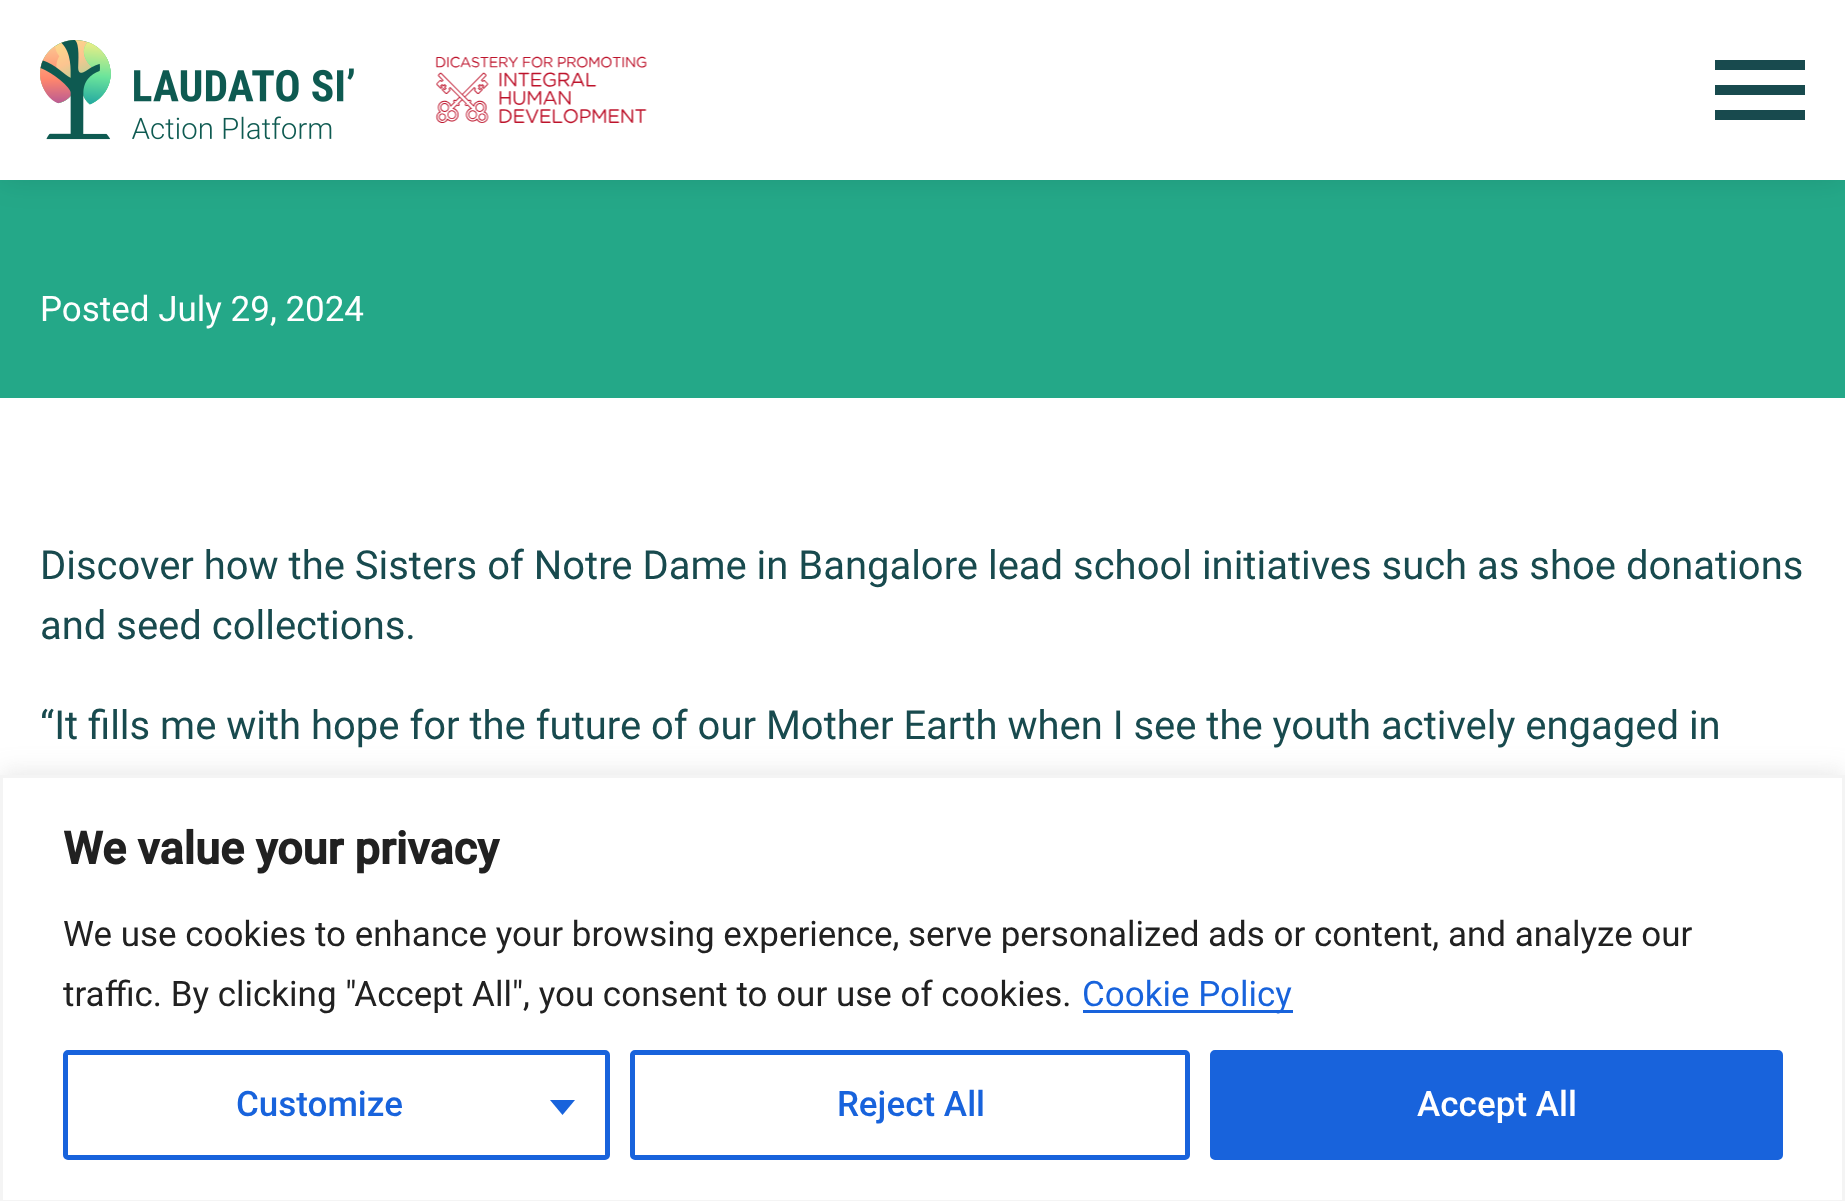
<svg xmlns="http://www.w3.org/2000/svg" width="1845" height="1201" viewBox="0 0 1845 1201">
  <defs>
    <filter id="blur1" x="-50%" y="-200%" width="200%" height="500%"><feGaussianBlur stdDeviation="15"/></filter>
    <filter id="blur2" x="-50%" y="-200%" width="200%" height="500%"><feGaussianBlur stdDeviation="12.5"/></filter>
  </defs>
  <rect width="100%" height="100%" fill="#ffffff"/>
  <rect x="0" y="180" width="1845" height="218" fill="#24a888"/>
  <rect x="0" y="0" width="1845" height="180" fill="#000000" fill-opacity="0.1" filter="url(#blur1)"/>
  <rect x="0" y="0" width="1845" height="180" fill="#ffffff"/>
  <image x="40" y="40" width="314" height="100" href="img1.png"/>
  <image x="435" y="56" width="212" height="68" href="img2.png"/>
  <rect x="1715" y="85" width="90" height="10" fill="#184a4e"/>
  <rect x="1715" y="60" width="90" height="10" fill="#184a4e"/>
  <rect x="1715" y="110" width="90" height="10" fill="#184a4e"/>
  <text x="40" y="321" font-family="Roboto" font-size="35" fill="#ffffff">Posted July 29, 2024</text>
  <text x="40" y="579" font-family="Roboto" font-size="40" fill="#184a4e">Discover how the Sisters of Notre Dame in Bangalore lead school initiatives such as shoe donations</text>
  <text x="40" y="639" font-family="Roboto" font-size="40" fill="#184a4e">and seed collections.</text>
  <text x="40" y="739" font-family="Roboto" font-size="40" fill="#184a4e">“It fills me with hope for the future of our Mother Earth when I see the youth actively engaged in</text>
  <rect x="0" y="773" width="1845" height="427" fill="#acabab" fill-opacity="0.3" filter="url(#blur2)"/>
  <rect x="1.5" y="776.5" width="1842" height="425" fill="#ffffff" stroke="#f4f4f4" stroke-width="3"/>
  <text x="63" y="864" font-family="Roboto" font-size="45" font-weight="bold" fill="#212121">We value your privacy</text>
  <text x="63" y="946" font-family="Roboto" font-size="35" fill="#212121">We use cookies to enhance your browsing experience, serve personalized ads or content, and analyze our</text>
  <text x="63" y="1006" font-family="Roboto" font-size="35" fill="#212121">traffic. By clicking "Accept All", you consent to our use of cookies.</text>
  <rect x="1083" y="1010" width="210" height="3" fill="#1863dc"/>
  <text x="1082" y="1006" font-family="Roboto" font-size="35" fill="#1863dc">Cookie Policy</text>
  <rect x="65.5" y="1052.5" width="542" height="105" rx="2.5" fill="none" stroke="#1863dc" stroke-width="5"/>
  <text x="236" y="1116" font-family="Roboto" font-size="35" font-weight="500" fill="#1863dc">Customize</text>
  <path d="M550 1100H575L562.5 1115Z" fill="#1863dc"/>
  <rect x="632.5" y="1052.5" width="555" height="105" rx="2.5" fill="none" stroke="#1863dc" stroke-width="5"/>
  <text x="837" y="1116" font-family="Roboto" font-size="35" font-weight="500" fill="#1863dc">Reject All</text>
  <rect x="1212.5" y="1052.5" width="568" height="105" rx="2.5" fill="#1863dc" stroke="#1863dc" stroke-width="5"/>
  <text x="1417" y="1116" font-family="Roboto" font-size="35" font-weight="500" fill="#ffffff">Accept All</text>
</svg>
